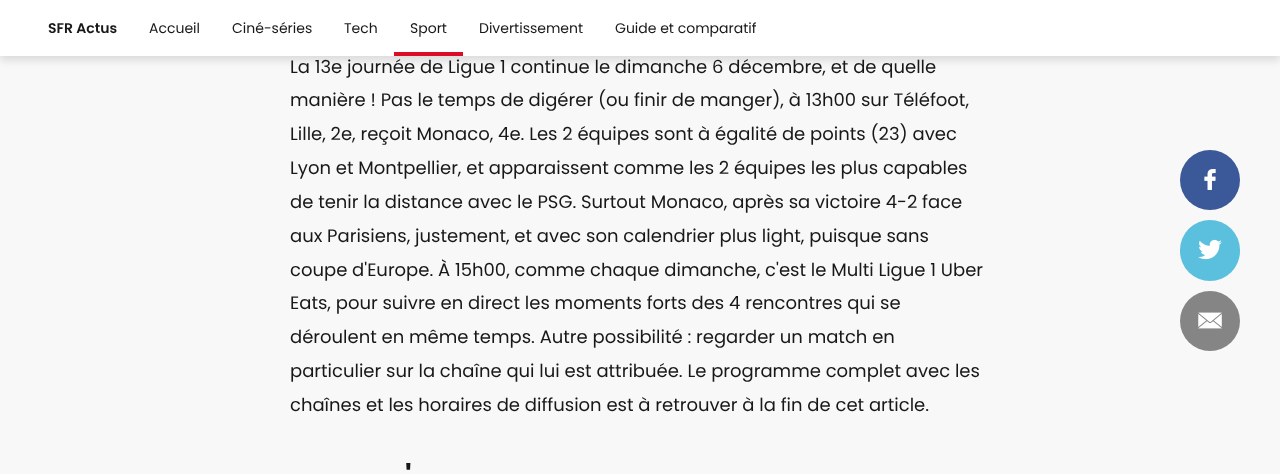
<svg xmlns="http://www.w3.org/2000/svg" width="1280" height="474" viewBox="0 0 1280 474">
  <defs>
    <filter id="blur1" x="-50%" y="-200%" width="200%" height="500%"><feGaussianBlur stdDeviation="4.5"/></filter>
  </defs>
  <rect width="100%" height="100%" fill="#f8f8f8"/>
  <rect x="0" y="-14" width="1280" height="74" fill="#222222" fill-opacity="0.13" filter="url(#blur1)"/>
  <rect x="0" y="0" width="1280" height="56" fill="#ffffff"/>
  <text x="48" y="33" font-family="Poppins" font-size="14" font-weight="600" fill="#181818">SFR Actus</text>
  <text x="149" y="33" font-family="'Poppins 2'" font-size="14" fill="#181818">Accueil</text>
  <text x="232" y="33" font-family="'Poppins 2'" font-size="14" fill="#181818">Ciné-séries</text>
  <text x="344" y="33" font-family="'Poppins 2'" font-size="14" fill="#181818">Tech</text>
  <text x="410" y="33" font-family="'Poppins 2'" font-size="14" fill="#181818">Sport</text>
  <rect x="394" y="52" width="69" height="4" fill="#d90d25"/>
  <text x="479" y="33" font-family="'Poppins 2'" font-size="14" fill="#181818">Divertissement</text>
  <text x="615" y="33" font-family="'Poppins 2'" font-size="14" fill="#181818">Guide et comparatif</text>
  <text x="290" y="73" font-family="Poppins" font-size="18" fill="#181818">La 13e journée de Ligue 1 continue le dimanche 6 décembre, et de quelle</text>
  <text x="290" y="106" font-family="Poppins" font-size="18" fill="#181818">manière ! Pas le temps de digérer (ou finir de manger), à 13h00 sur Téléfoot,</text>
  <text x="290" y="140" font-family="Poppins" font-size="18" fill="#181818">Lille, 2e, reçoit Monaco, 4e. Les 2 équipes sont à égalité de points (23) avec</text>
  <text x="290" y="174" font-family="Poppins" font-size="18" fill="#181818">Lyon et Montpellier, et apparaissent comme les 2 équipes les plus capables</text>
  <text x="290" y="208" font-family="Poppins" font-size="18" fill="#181818">de tenir la distance avec le PSG. Surtout Monaco, après sa victoire 4-2 face</text>
  <text x="290" y="242" font-family="Poppins" font-size="18" fill="#181818">aux Parisiens, justement, et avec son calendrier plus light, puisque sans</text>
  <text x="290" y="276" font-family="Poppins" font-size="18" fill="#181818">coupe d'Europe. À 15h00, comme chaque dimanche, c'est le Multi Ligue 1 Uber</text>
  <text x="290" y="309" font-family="Poppins" font-size="18" fill="#181818">Eats, pour suivre en direct les moments forts des 4 rencontres qui se</text>
  <text x="290" y="343" font-family="Poppins" font-size="18" fill="#181818">déroulent en même temps. Autre possibilité : regarder un match en</text>
  <text x="290" y="377" font-family="Poppins" font-size="18" fill="#181818">particulier sur la chaîne qui lui est attribuée. Le programme complet avec les</text>
  <text x="290" y="411" font-family="Poppins" font-size="18" fill="#181818">chaînes et les horaires de diffusion est à retrouver à la fin de cet article.</text>
  <text x="405" y="487" font-family="Poppins" font-size="30" font-weight="bold" fill="#181818">'</text>
  <circle cx="1210" cy="180" r="30" fill="#3b5998"/>
  <image x="1204" y="169" width="12" height="21" href="img1.png"/>
  <rect x="1180" y="220" width="60" height="61" rx="30" fill="#5bc0de"/>
  <image x="1198" y="239" width="24" height="21" href="img2.png"/>
  <circle cx="1210" cy="321" r="30" fill="#858585"/>
  <image x="1198" y="312" width="24" height="17" href="img3.png"/>
</svg>
